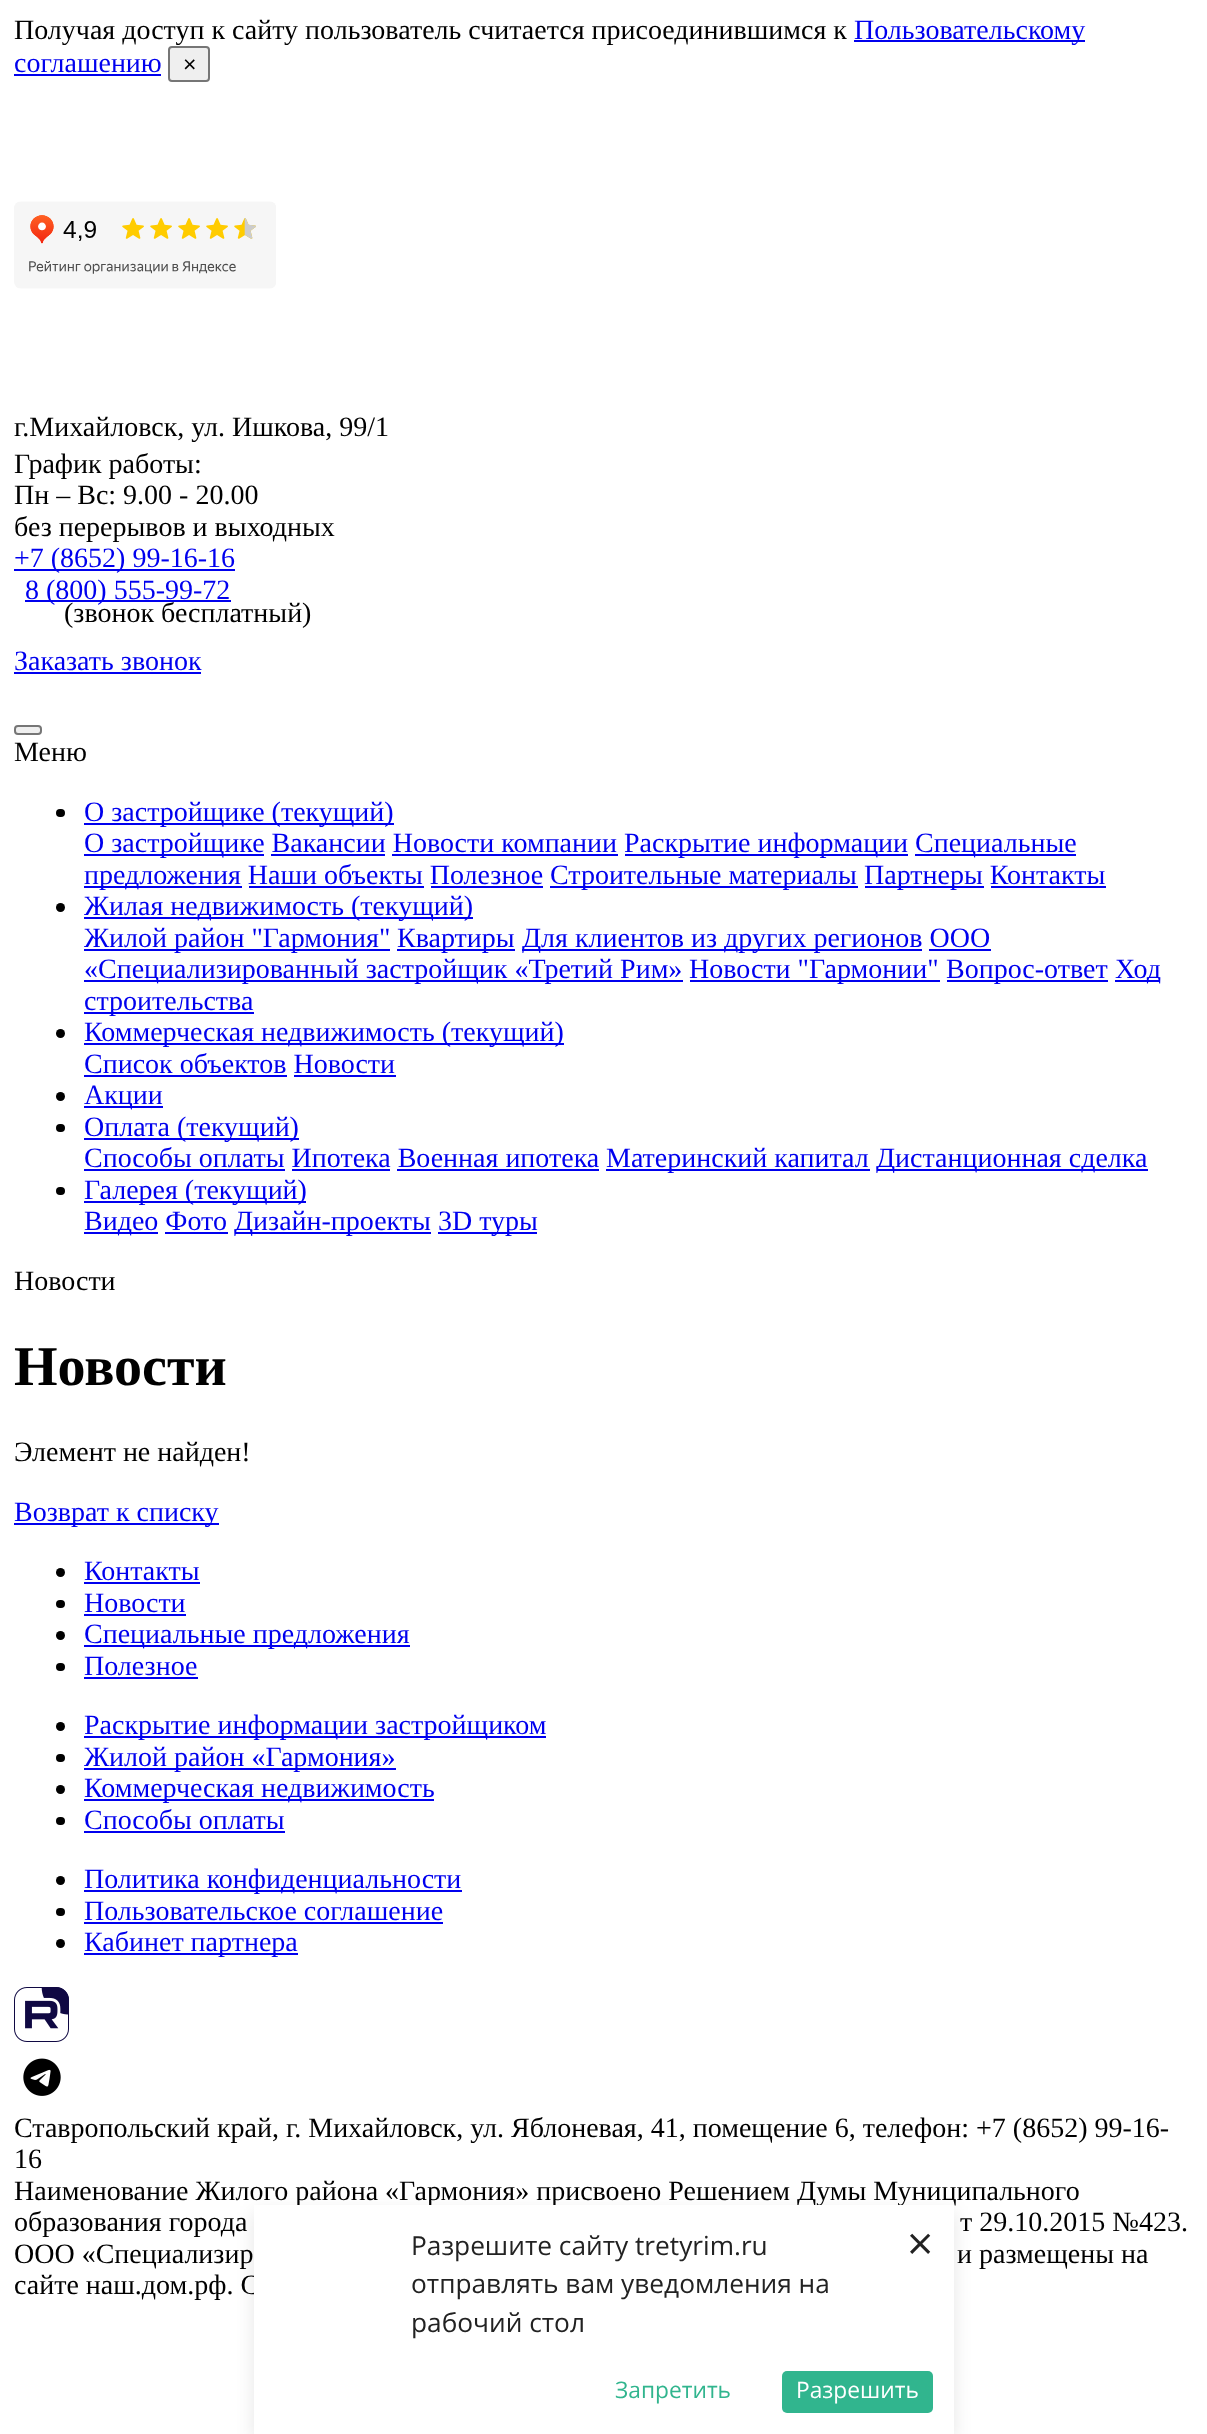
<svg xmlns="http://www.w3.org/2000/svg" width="1207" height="2434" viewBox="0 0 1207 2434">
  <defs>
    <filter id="blur1" x="-50%" y="-200%" width="200%" height="500%"><feGaussianBlur stdDeviation="9"/></filter>
  </defs>
  <rect width="100%" height="100%" fill="#ffffff"/>
  <text x="14" y="39" font-family="Liberation Serif" font-size="28" fill="#000000">Получая доступ к сайту пользователь считается присоединившимся к</text>
  <rect x="854" y="40" width="231" height="2" fill="#0000ee"/>
  <text x="854" y="39" font-family="Liberation Serif" font-size="28" fill="#0000ee">Пользовательскому</text>
  <text x="14" y="72" font-family="Liberation Serif" font-size="28" fill="#0000ee">соглашению</text>
  <rect x="14" y="74" width="147" height="2" fill="#0000ee"/>
  <rect x="169" y="47" width="40" height="34" rx="3" fill="#efefef" stroke="#767676" stroke-width="2"/>
  <text x="183" y="72" font-family="Liberation Sans" font-size="23" fill="#000000">×</text>
  <image x="14" y="201" width="262" height="88" href="img1.png"/>
  <text x="14" y="436" font-family="Liberation Serif" font-size="28" fill="#000000">г.Михайловск, ул. Ишкова, 99/1</text>
  <text x="14" y="473" font-family="Liberation Serif" font-size="28" fill="#000000">График работы:</text>
  <text x="14" y="504" font-family="Liberation Serif" font-size="28" fill="#000000">Пн – Вс: 9.00 - 20.00</text>
  <text x="14" y="536" font-family="Liberation Serif" font-size="28" fill="#000000">без перерывов и выходных</text>
  <rect x="14" y="569" width="221" height="2" fill="#0000ee"/>
  <text x="14" y="567" font-family="Liberation Serif" font-size="28" fill="#0000ee">+7 (8652) 99-16-16</text>
  <rect x="25" y="600" width="206" height="2" fill="#0000ee"/>
  <text x="25" y="599" font-family="Liberation Serif" font-size="28" fill="#0000ee">8 (800) 555-99-72</text>
  <text x="64" y="622" font-family="Liberation Serif" font-size="28" fill="#000000">(звонок бесплатный)</text>
  <text x="14" y="670" font-family="Liberation Serif" font-size="28" fill="#0000ee">Заказать звонок</text>
  <rect x="14" y="672" width="187" height="2" fill="#0000ee"/>
  <rect x="15" y="726" width="26" height="8" rx="3" fill="#efefef" stroke="#767676" stroke-width="2"/>
  <text x="14" y="761" font-family="Liberation Serif" font-size="28" fill="#000000">Меню</text>
  <rect x="56" y="809" width="9" height="8" rx="4" fill="#000000"/>
  <rect x="84" y="823" width="310" height="2" fill="#0000ee"/>
  <text x="84" y="821" font-family="Liberation Serif" font-size="28" fill="#0000ee">О застройщике (текущий)</text>
  <rect x="84" y="854" width="180" height="2" fill="#0000ee"/>
  <text x="84" y="852" font-family="Liberation Serif" font-size="28" fill="#0000ee">О застройщике Вакансии Новости компании</text>
  <rect x="625" y="854" width="283" height="2" fill="#0000ee"/>
  <text x="624" y="852" font-family="Liberation Serif" font-size="28" fill="#0000ee">Раскрытие информации</text>
  <rect x="915" y="854" width="161" height="2" fill="#0000ee"/>
  <text x="915" y="852" font-family="Liberation Serif" font-size="28" fill="#0000ee">Специальные</text>
  <rect x="271" y="854" width="114" height="2" fill="#0000ee"/>
  <rect x="392" y="854" width="226" height="2" fill="#0000ee"/>
  <rect x="84" y="886" width="158" height="2" fill="#0000ee"/>
  <text x="84" y="884" font-family="Liberation Serif" font-size="28" fill="#0000ee">предложения Наши объекты Полезное</text>
  <rect x="550" y="886" width="308" height="2" fill="#0000ee"/>
  <text x="550" y="884" font-family="Liberation Serif" font-size="28" fill="#0000ee">Строительные материалы</text>
  <rect x="865" y="886" width="119" height="2" fill="#0000ee"/>
  <text x="864" y="884" font-family="Liberation Serif" font-size="28" fill="#0000ee">Партнеры Контакты</text>
  <rect x="249" y="886" width="175" height="2" fill="#0000ee"/>
  <rect x="431" y="886" width="112" height="2" fill="#0000ee"/>
  <rect x="991" y="886" width="115" height="2" fill="#0000ee"/>
  <circle cx="60.5" cy="907.5" r="4.5" fill="#000000"/>
  <rect x="84" y="917" width="389" height="2" fill="#0000ee"/>
  <text x="84" y="915" font-family="Liberation Serif" font-size="28" fill="#0000ee">Жилая недвижимость (текущий)</text>
  <rect x="84" y="949" width="306" height="2" fill="#0000ee"/>
  <text x="84" y="947" font-family="Liberation Serif" font-size="28" fill="#0000ee">Жилой район "Гармония"</text>
  <rect x="397" y="949" width="118" height="2" fill="#0000ee"/>
  <text x="397" y="947" font-family="Liberation Serif" font-size="28" fill="#0000ee">Квартиры</text>
  <rect x="522" y="949" width="400" height="2" fill="#0000ee"/>
  <text x="522" y="947" font-family="Liberation Serif" font-size="28" fill="#0000ee">Для клиентов из других регионов ООО</text>
  <rect x="84" y="980" width="599" height="2" fill="#0000ee"/>
  <text x="84" y="978" font-family="Liberation Serif" font-size="28" fill="#0000ee">«Специализированный застройщик «Третий Рим»</text>
  <rect x="929" y="949" width="62" height="2" fill="#0000ee"/>
  <rect x="690" y="980" width="250" height="2" fill="#0000ee"/>
  <text x="689" y="978" font-family="Liberation Serif" font-size="28" fill="#0000ee">Новости "Гармонии"</text>
  <rect x="947" y="980" width="161" height="2" fill="#0000ee"/>
  <text x="946" y="978" font-family="Liberation Serif" font-size="28" fill="#0000ee">Вопрос-ответ</text>
  <rect x="1115" y="980" width="45" height="2" fill="#0000ee"/>
  <text x="1115" y="978" font-family="Liberation Serif" font-size="28" fill="#0000ee">Ход</text>
  <rect x="84" y="1012" width="170" height="2" fill="#0000ee"/>
  <text x="84" y="1010" font-family="Liberation Serif" font-size="28" fill="#0000ee">строительства</text>
  <circle cx="60.5" cy="1033.5" r="4.5" fill="#000000"/>
  <rect x="84" y="1043" width="480" height="2" fill="#0000ee"/>
  <text x="84" y="1041" font-family="Liberation Serif" font-size="28" fill="#0000ee">Коммерческая недвижимость (текущий)</text>
  <text x="84" y="1073" font-family="Liberation Serif" font-size="28" fill="#0000ee">Список объектов Новости</text>
  <rect x="84" y="1075" width="203" height="2" fill="#0000ee"/>
  <rect x="294" y="1075" width="102" height="2" fill="#0000ee"/>
  <circle cx="60.5" cy="1096.5" r="4.5" fill="#000000"/>
  <rect x="84" y="1106" width="79" height="2" fill="#0000ee"/>
  <text x="84" y="1104" font-family="Liberation Serif" font-size="28" fill="#0000ee">Акции</text>
  <rect x="56" y="1124" width="9" height="8" rx="4" fill="#000000"/>
  <rect x="84" y="1138" width="215" height="2" fill="#0000ee"/>
  <text x="84" y="1136" font-family="Liberation Serif" font-size="28" fill="#0000ee">Оплата (текущий)</text>
  <text x="84" y="1167" font-family="Liberation Serif" font-size="28" fill="#0000ee">Способы оплаты Ипотека Военная ипотека</text>
  <rect x="84" y="1169" width="201" height="2" fill="#0000ee"/>
  <rect x="606" y="1169" width="264" height="2" fill="#0000ee"/>
  <text x="606" y="1167" font-family="Liberation Serif" font-size="28" fill="#0000ee">Материнский капитал</text>
  <rect x="877" y="1169" width="271" height="2" fill="#0000ee"/>
  <text x="876" y="1167" font-family="Liberation Serif" font-size="28" fill="#0000ee">Дистанционная сделка</text>
  <rect x="292" y="1169" width="98" height="2" fill="#0000ee"/>
  <rect x="397" y="1169" width="202" height="2" fill="#0000ee"/>
  <rect x="56" y="1187" width="9" height="8" rx="4" fill="#000000"/>
  <rect x="84" y="1201" width="222" height="2" fill="#0000ee"/>
  <text x="84" y="1199" font-family="Liberation Serif" font-size="28" fill="#0000ee">Галерея (текущий)</text>
  <rect x="84" y="1232" width="74" height="2" fill="#0000ee"/>
  <text x="84" y="1230" font-family="Liberation Serif" font-size="28" fill="#0000ee">Видео Фото</text>
  <rect x="235" y="1232" width="196" height="2" fill="#0000ee"/>
  <text x="234" y="1230" font-family="Liberation Serif" font-size="28" fill="#0000ee">Дизайн-проекты</text>
  <rect x="438" y="1232" width="99" height="2" fill="#0000ee"/>
  <text x="438" y="1230" font-family="Liberation Serif" font-size="28" fill="#0000ee">3D туры</text>
  <rect x="165" y="1232" width="63" height="2" fill="#0000ee"/>
  <text x="14" y="1290" font-family="Liberation Serif" font-size="28" fill="#000000">Новости</text>
  <text x="14" y="1385" font-family="Liberation Serif" font-size="56" font-weight="bold" fill="#000000">Новости</text>
  <text x="14" y="1461" font-family="Liberation Serif" font-size="28" fill="#000000">Элемент не найден!</text>
  <rect x="14" y="1523" width="205" height="2" fill="#0000ee"/>
  <text x="14" y="1521" font-family="Liberation Serif" font-size="28" fill="#0000ee">Возврат к списку</text>
  <circle cx="60.5" cy="1572.5" r="4.5" fill="#000000"/>
  <text x="84" y="1580" font-family="Liberation Serif" font-size="28" fill="#0000ee">Контакты</text>
  <rect x="84" y="1582" width="116" height="2" fill="#0000ee"/>
  <rect x="56" y="1600" width="9" height="8" rx="4" fill="#000000"/>
  <text x="84" y="1612" font-family="Liberation Serif" font-size="28" fill="#0000ee">Новости</text>
  <rect x="84" y="1614" width="102" height="2" fill="#0000ee"/>
  <circle cx="60.5" cy="1635.5" r="4.5" fill="#000000"/>
  <rect x="84" y="1645" width="326" height="2" fill="#0000ee"/>
  <text x="84" y="1643" font-family="Liberation Serif" font-size="28" fill="#0000ee">Специальные предложения</text>
  <rect x="56" y="1663" width="9" height="8" rx="4" fill="#000000"/>
  <text x="84" y="1675" font-family="Liberation Serif" font-size="28" fill="#0000ee">Полезное</text>
  <rect x="84" y="1677" width="114" height="2" fill="#0000ee"/>
  <circle cx="60.5" cy="1726.5" r="4.5" fill="#000000"/>
  <rect x="84" y="1736" width="462" height="2" fill="#0000ee"/>
  <text x="84" y="1734" font-family="Liberation Serif" font-size="28" fill="#0000ee">Раскрытие информации застройщиком</text>
  <rect x="56" y="1754" width="9" height="8" rx="4" fill="#000000"/>
  <rect x="84" y="1768" width="312" height="2" fill="#0000ee"/>
  <text x="84" y="1766" font-family="Liberation Serif" font-size="28" fill="#0000ee">Жилой район «Гармония»</text>
  <circle cx="60.5" cy="1789.5" r="4.5" fill="#000000"/>
  <rect x="84" y="1799" width="350" height="2" fill="#0000ee"/>
  <text x="84" y="1797" font-family="Liberation Serif" font-size="28" fill="#0000ee">Коммерческая недвижимость</text>
  <rect x="56" y="1817" width="9" height="8" rx="4" fill="#000000"/>
  <text x="84" y="1829" font-family="Liberation Serif" font-size="28" fill="#0000ee">Способы оплаты</text>
  <rect x="84" y="1831" width="201" height="2" fill="#0000ee"/>
  <circle cx="60.5" cy="1880.5" r="4.5" fill="#000000"/>
  <rect x="84" y="1890" width="378" height="2" fill="#0000ee"/>
  <text x="84" y="1888" font-family="Liberation Serif" font-size="28" fill="#0000ee">Политика конфиденциальности</text>
  <rect x="56" y="1908" width="9" height="8" rx="4" fill="#000000"/>
  <text x="84" y="1920" font-family="Liberation Serif" font-size="28" fill="#0000ee">Пользовательское соглашение</text>
  <rect x="84" y="1922" width="359" height="2" fill="#0000ee"/>
  <circle cx="60.5" cy="1943.5" r="4.5" fill="#000000"/>
  <rect x="84" y="1953" width="214" height="2" fill="#0000ee"/>
  <text x="84" y="1951" font-family="Liberation Serif" font-size="28" fill="#0000ee">Кабинет партнера</text>
  <image x="14" y="1987" width="55" height="55" href="img2.png"/>
  <image x="23" y="2058" width="38" height="38" href="img3.png"/>
  <text x="14" y="2137" font-family="Liberation Serif" font-size="28" fill="#000000">Ставропольский край, г. Михайловск, ул. Яблоневая, 41, помещение 6, телефон: +7 (8652) 99-16-</text>
  <text x="14" y="2168" font-family="Liberation Serif" font-size="28" fill="#000000">16</text>
  <text x="14" y="2200" font-family="Liberation Serif" font-size="28" fill="#000000">Наименование Жилого района «Гармония» присвоено Решением Думы Муниципального</text>
  <text x="14" y="2231" font-family="Liberation Serif" font-size="28" fill="#000000">образования города</text>
  <text x="960" y="2231" font-family="Liberation Serif" font-size="28" fill="#000000">т 29.10.2015 №423.</text>
  <text x="14" y="2263" font-family="Liberation Serif" font-size="28" fill="#000000">ООО «Специализир</text>
  <text x="957" y="2263" font-family="Liberation Serif" font-size="28" fill="#000000">и размещены на</text>
  <text x="14" y="2294" font-family="Liberation Serif" font-size="28" fill="#000000">сайте наш.дом.рф. С</text>
  <rect x="254" y="2212" width="700" height="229" fill="#000000" fill-opacity="0.1" filter="url(#blur1)"/>
  <rect x="254" y="2205" width="700" height="229" fill="#ffffff"/>
  <text x="411" y="2255" font-family="Open Sans" font-size="26.25" fill="#222222">Разрешите сайту tretyrim.ru</text>
  <text x="411" y="2293" font-family="Open Sans" font-size="26.25" fill="#222222">отправлять вам уведомления на</text>
  <text x="411" y="2332" font-family="Open Sans" font-size="26.25" fill="#222222">рабочий стол</text>
  <text x="615" y="2398" font-family="Open Sans" font-size="22.75" fill="#31b58e">Запретить</text>
  <rect x="782" y="2371" width="151" height="42" rx="5" fill="#31b58e"/>
  <text x="796" y="2398" font-family="Open Sans" font-size="22.75" fill="#ffffff">Разрешить</text>
  <text x="907" y="2260" font-family="Open Sans" font-size="46" fill="#222222">×</text>
</svg>
